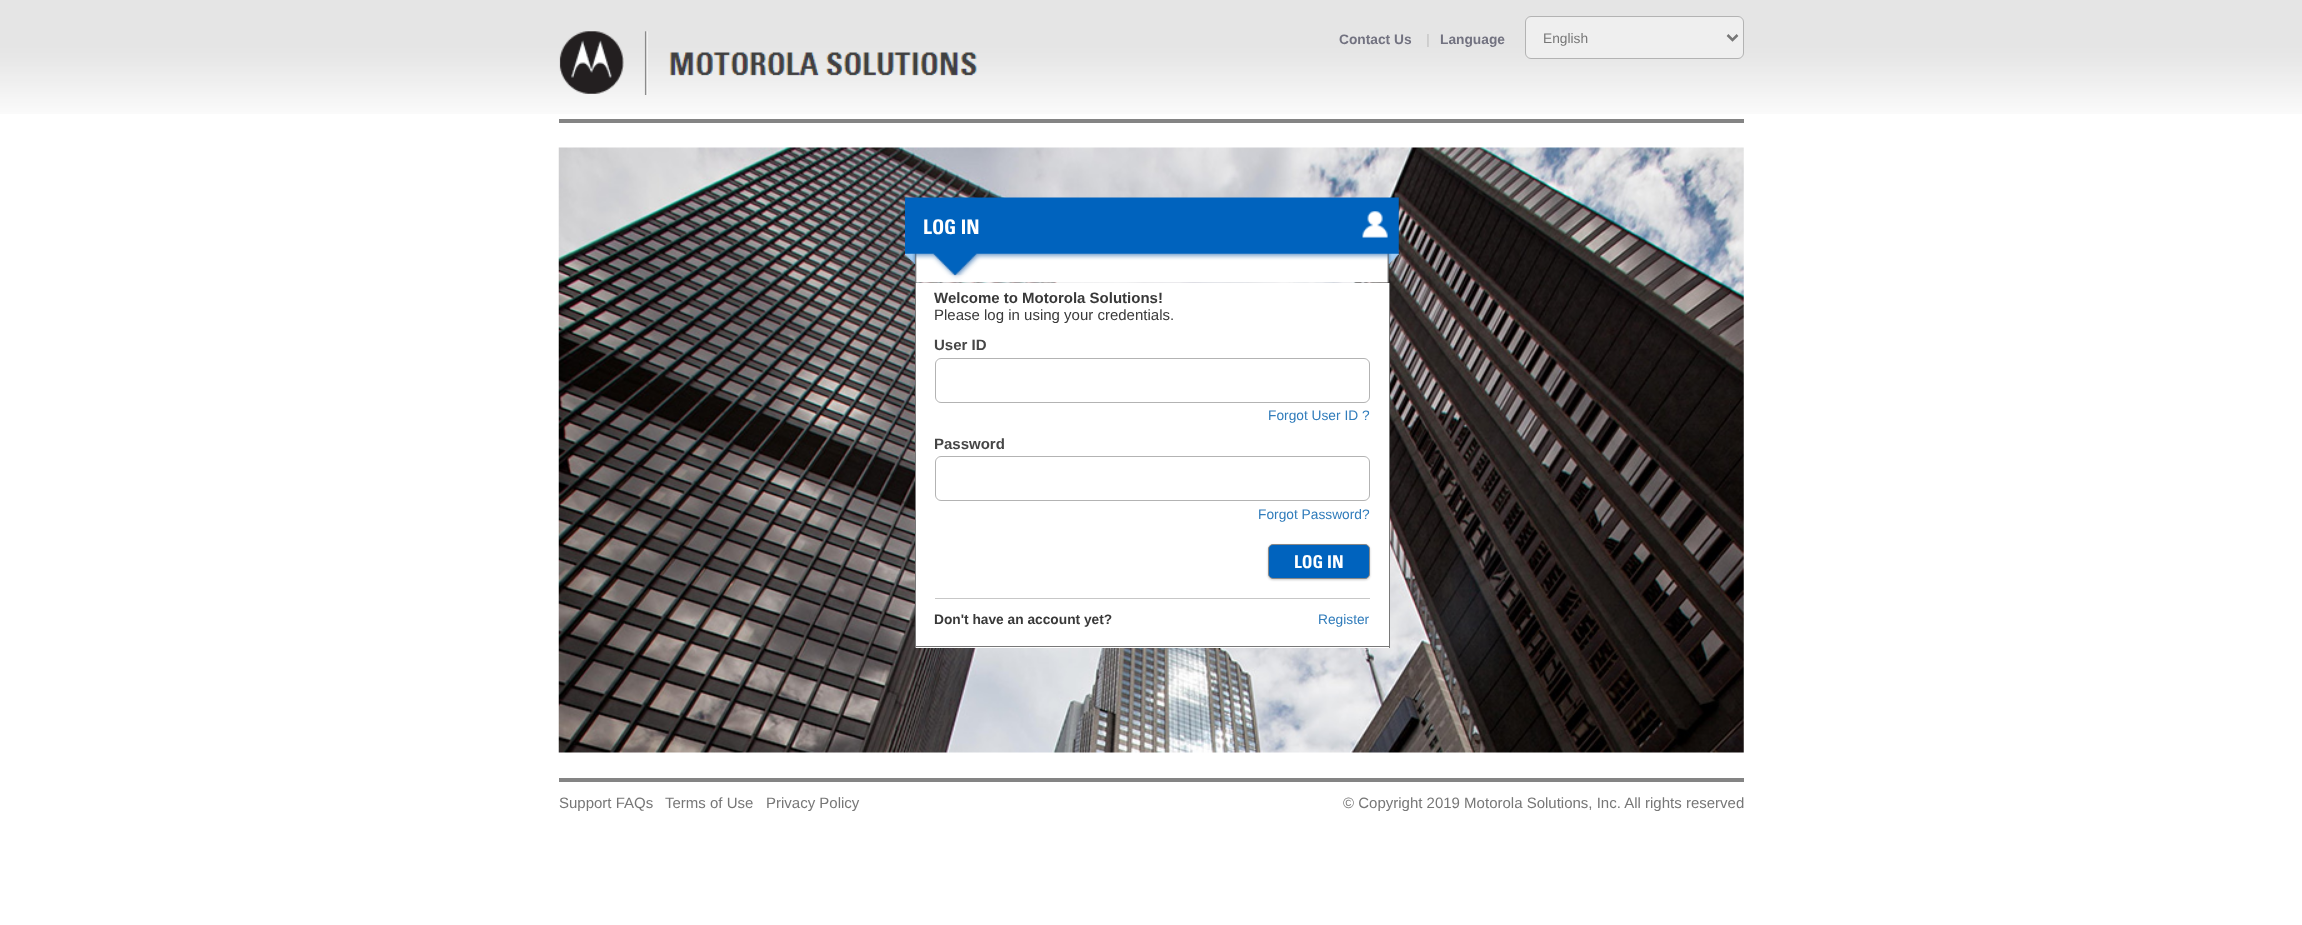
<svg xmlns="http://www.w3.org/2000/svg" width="2302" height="925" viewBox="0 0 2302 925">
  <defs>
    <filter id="blur1" x="-50%" y="-200%" width="200%" height="500%"><feGaussianBlur stdDeviation="1"/></filter>
  </defs>
  <rect width="100%" height="100%" fill="#ffffff"/>
  <image x="0" y="0" width="2302" height="114" href="img1.png"/>
  <rect x="559" y="119" width="1185" height="4" fill="#848484"/>
  <image x="559" y="31" width="89" height="64" href="img2.png"/>
  <image x="669" y="52" width="309" height="24" href="img3.png"/>
  <text x="1339" y="44" font-family="Liberation Sans" font-size="13.75" font-weight="bold" fill="#727280">Contact Us</text>
  <text x="1426" y="44" font-family="Liberation Sans" font-size="13.75" font-weight="bold" fill="#cccccc">|</text>
  <text x="1440" y="44" font-family="Liberation Sans" font-size="13.75" font-weight="bold" fill="#727280">Language</text>
  <rect x="1525.5" y="16.5" width="218" height="42" rx="5.5" fill="#efefef" stroke="#b3b3b3"/>
  <path d="M1727.5 35L1732.5 40L1737.5 35" fill="none" stroke="#777777" stroke-width="2.5"/>
  <text x="1543" y="43" font-family="Liberation Sans" font-size="13.75" fill="#777777">English</text>
  <image x="558" y="147" width="1186" height="606" href="img4.png"/>
  <image x="905" y="197" width="494" height="86" href="img5.png"/>
  <text x="923" y="234" font-family="'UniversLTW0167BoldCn'" font-size="20" font-weight="bold" fill="#ffffff">LOG IN</text>
  <rect x="916" y="283" width="473" height="365" fill="#ffffff"/>
  <rect x="1389" y="283" width="1" height="365" fill="#787878"/>
  <rect x="915" y="646" width="475" height="1" fill="#787878"/>
  <rect x="915" y="283" width="1" height="365" fill="#787878"/>
  <text x="934" y="303" font-family="Liberation Sans" font-size="15" font-weight="bold" fill="#393939">Welcome to Motorola Solutions!</text>
  <text x="934" y="320" font-family="Liberation Sans" font-size="15" fill="#393939">Please log in using your credentials.</text>
  <text x="934" y="350" font-family="Liberation Sans" font-size="15" font-weight="bold" fill="#464646">User ID</text>
  <rect x="935.5" y="358.5" width="434" height="44" rx="5.5" fill="none" stroke="#b3b3b3"/>
  <text x="1268" y="420" font-family="Liberation Sans" font-size="13.75" fill="#307cbb">Forgot User ID ?</text>
  <text x="934" y="449" font-family="Liberation Sans" font-size="15" font-weight="bold" fill="#464646">Password</text>
  <rect x="935.5" y="456.5" width="434" height="44" rx="5.5" fill="none" stroke="#b3b3b3"/>
  <text x="1258" y="519" font-family="Liberation Sans" font-size="13.75" fill="#307cbb">Forgot Password?</text>
  <rect x="1268" y="545" width="102" height="35" rx="5" fill="#000000" fill-opacity="0.2" filter="url(#blur1)"/>
  <rect x="1268.5" y="544.5" width="101" height="34" rx="4.5" fill="#0063be" stroke="#888888"/>
  <text x="1294" y="568" font-family="'UniversLTW0167BoldCn'" font-size="17.5" font-weight="bold" fill="#ffffff">LOG IN</text>
  <rect x="935" y="598" width="435" height="1" fill="#c7c7c7"/>
  <text x="934" y="624" font-family="Liberation Sans" font-size="13.75" font-weight="bold" fill="#393939">Don't have an account yet?</text>
  <text x="1318" y="624" font-family="Liberation Sans" font-size="13.75" fill="#307cbb">Register</text>
  <rect x="559" y="778" width="1185" height="4" fill="#848484"/>
  <text x="559" y="808" font-family="Liberation Sans" font-size="15" fill="#777777">Support FAQs</text>
  <text x="665" y="808" font-family="Liberation Sans" font-size="15" fill="#777777">Terms of Use</text>
  <text x="766" y="808" font-family="Liberation Sans" font-size="15" fill="#777777">Privacy Policy</text>
  <text x="1343" y="808" font-family="Liberation Sans" font-size="15" fill="#777777">© Copyright 2019 Motorola Solutions, Inc. All rights reserved</text>
</svg>
